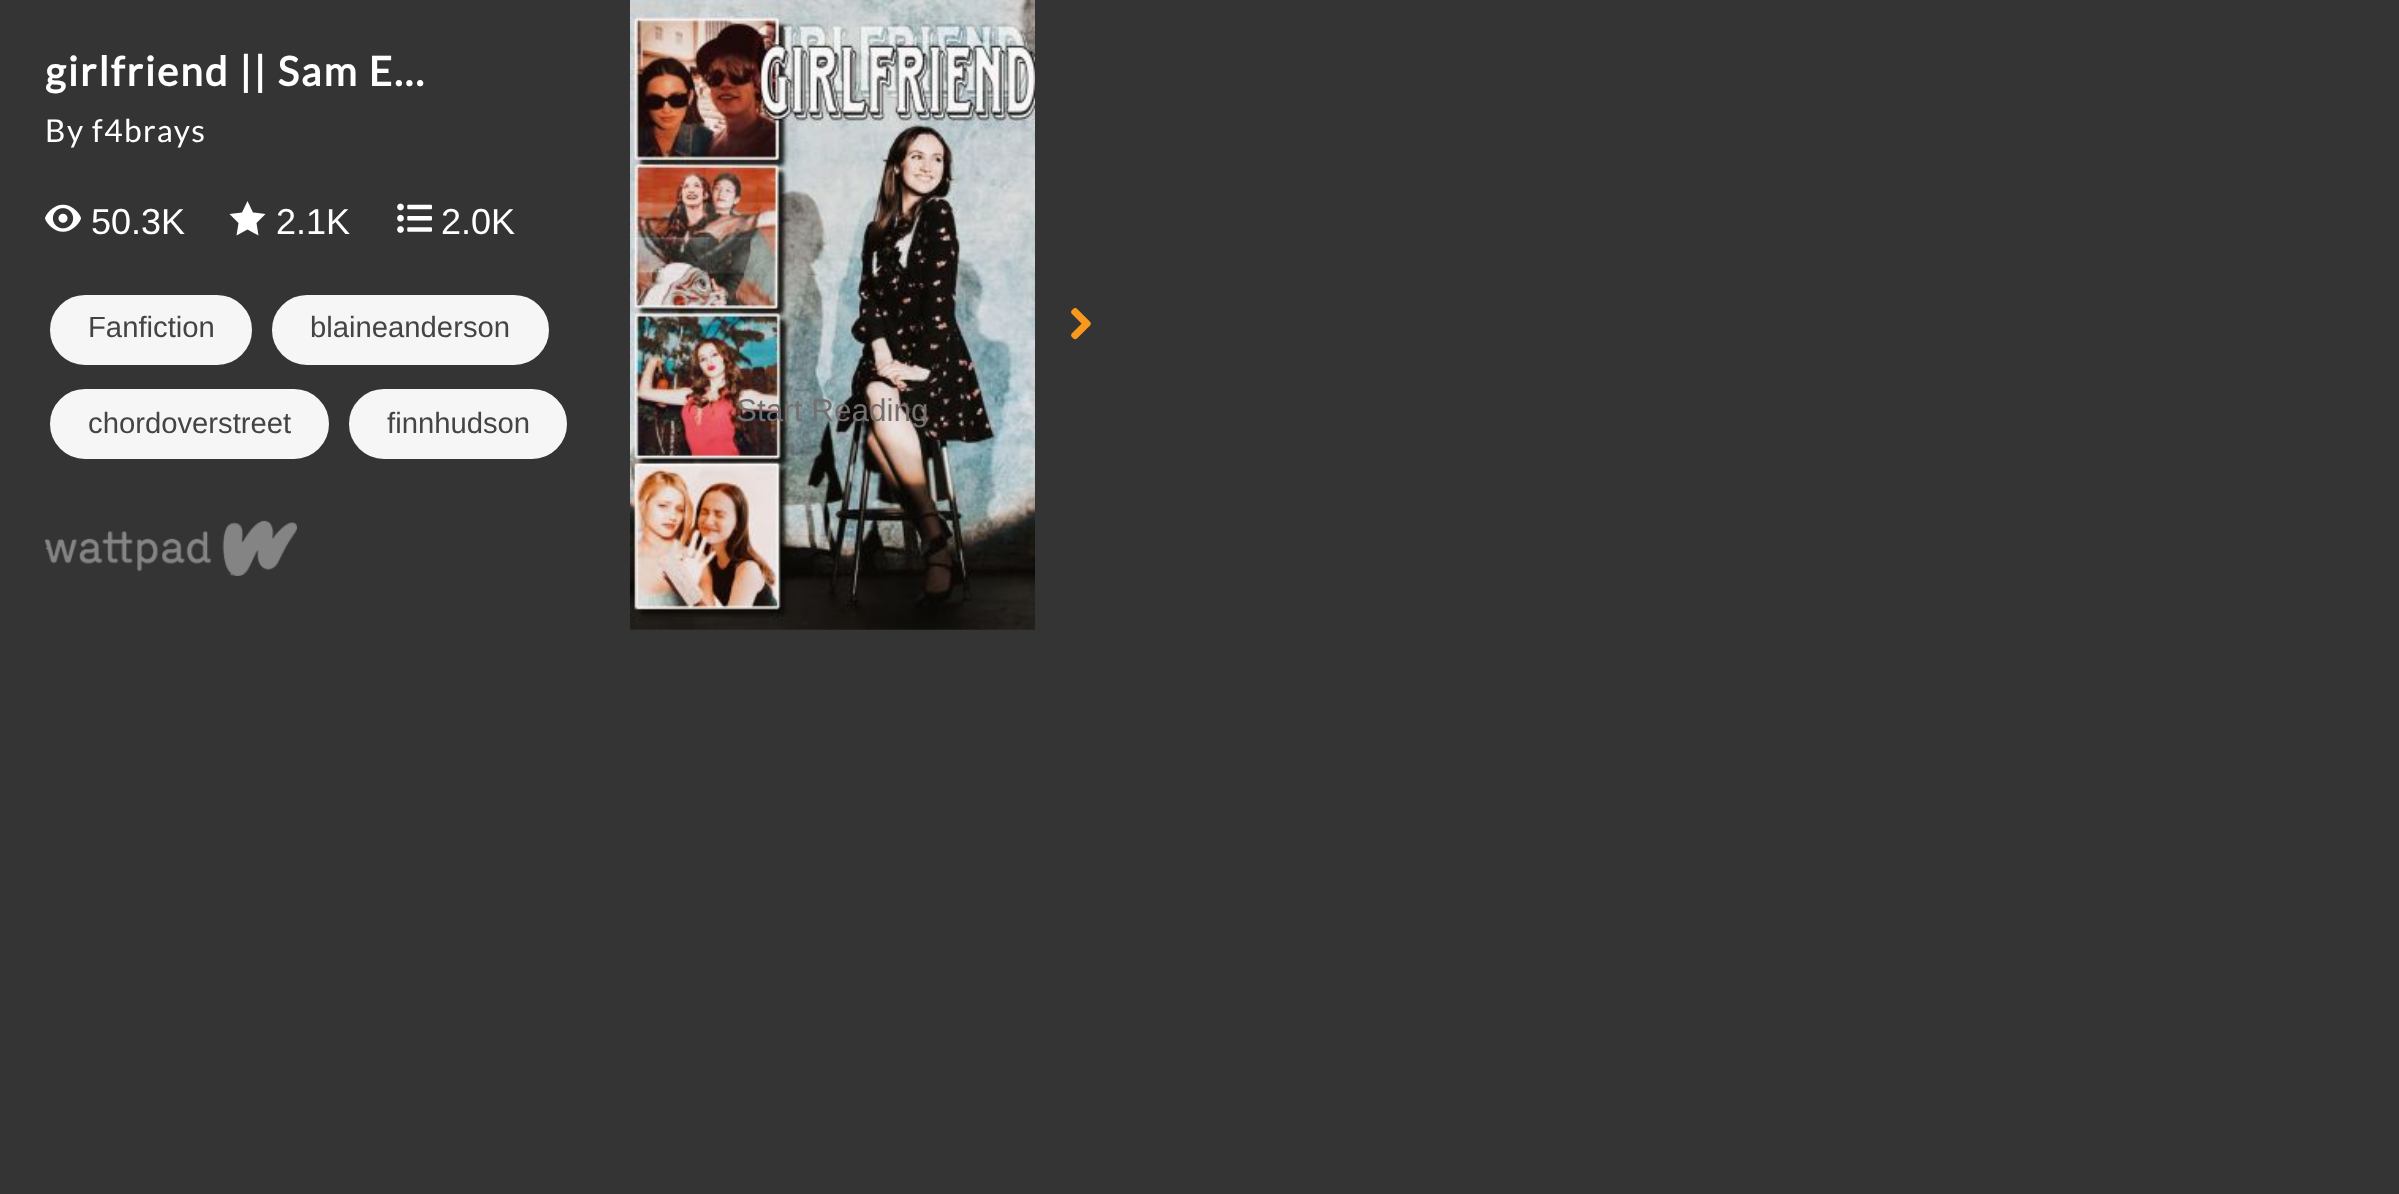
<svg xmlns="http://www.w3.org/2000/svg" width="2399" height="1194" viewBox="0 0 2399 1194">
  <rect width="100%" height="100%" fill="#343434"/>
  <text x="45" y="86" font-family="Lato" font-size="40.5" font-weight="bold" letter-spacing="2" fill="#ffffff">girlfriend || Sam E...</text>
  <text x="45" y="142" font-family="Lato" font-size="31.5" letter-spacing="1.5" fill="#ffffff">By f4brays</text>
  <image x="45" y="204" width="36" height="28" href="img1.png"/>
  <text x="91" y="234" font-family="Liberation Sans" font-size="36" fill="#ffffff">50.3K</text>
  <path d="M247.5 201L253 212.5L265.5 214L256.5 223L258.5 235.5L247.5 229.5L236.5 235.5L238.5 223L229.5 214L242 212.5Z" fill="#ffffff"/>
  <text x="276" y="234" font-family="Liberation Sans" font-size="36" fill="#ffffff">2.1K</text>
  <image x="397" y="203" width="35" height="30" href="img2.png"/>
  <text x="441" y="234" font-family="Liberation Sans" font-size="36" fill="#ffffff">2.0K</text>
  <rect x="51" y="296" width="200" height="68" rx="34" fill="#f6f6f7" stroke="#f6f6f7" stroke-width="2"/>
  <text x="88" y="337" font-family="Liberation Sans" font-size="29.25" fill="#444444">Fanfiction</text>
  <rect x="273" y="296" width="275" height="68" rx="34" fill="#f6f6f7" stroke="#f6f6f7" stroke-width="2"/>
  <text x="310" y="337" font-family="Liberation Sans" font-size="29.25" fill="#444444">blaineanderson</text>
  <rect x="51" y="390" width="277" height="68" rx="34" fill="#f6f6f7" stroke="#f6f6f7" stroke-width="2"/>
  <text x="88" y="433" font-family="Liberation Sans" font-size="29.25" fill="#444444">chordoverstreet</text>
  <rect x="350" y="390" width="216" height="68" rx="34" fill="#f6f6f7" stroke="#f6f6f7" stroke-width="2"/>
  <text x="387" y="433" font-family="Liberation Sans" font-size="29.25" fill="#444444">finnhudson</text>
  <image x="45" y="520" width="252" height="56" href="img3.png"/>
  <image x="1071" y="308" width="20" height="32" href="img4.png"/>
  <image x="630" y="0" width="405" height="630" href="img5.png"/>
  <text x="736" y="421" font-family="Liberation Sans" font-size="31.5" fill="#736f6e">Start Reading</text>
</svg>
